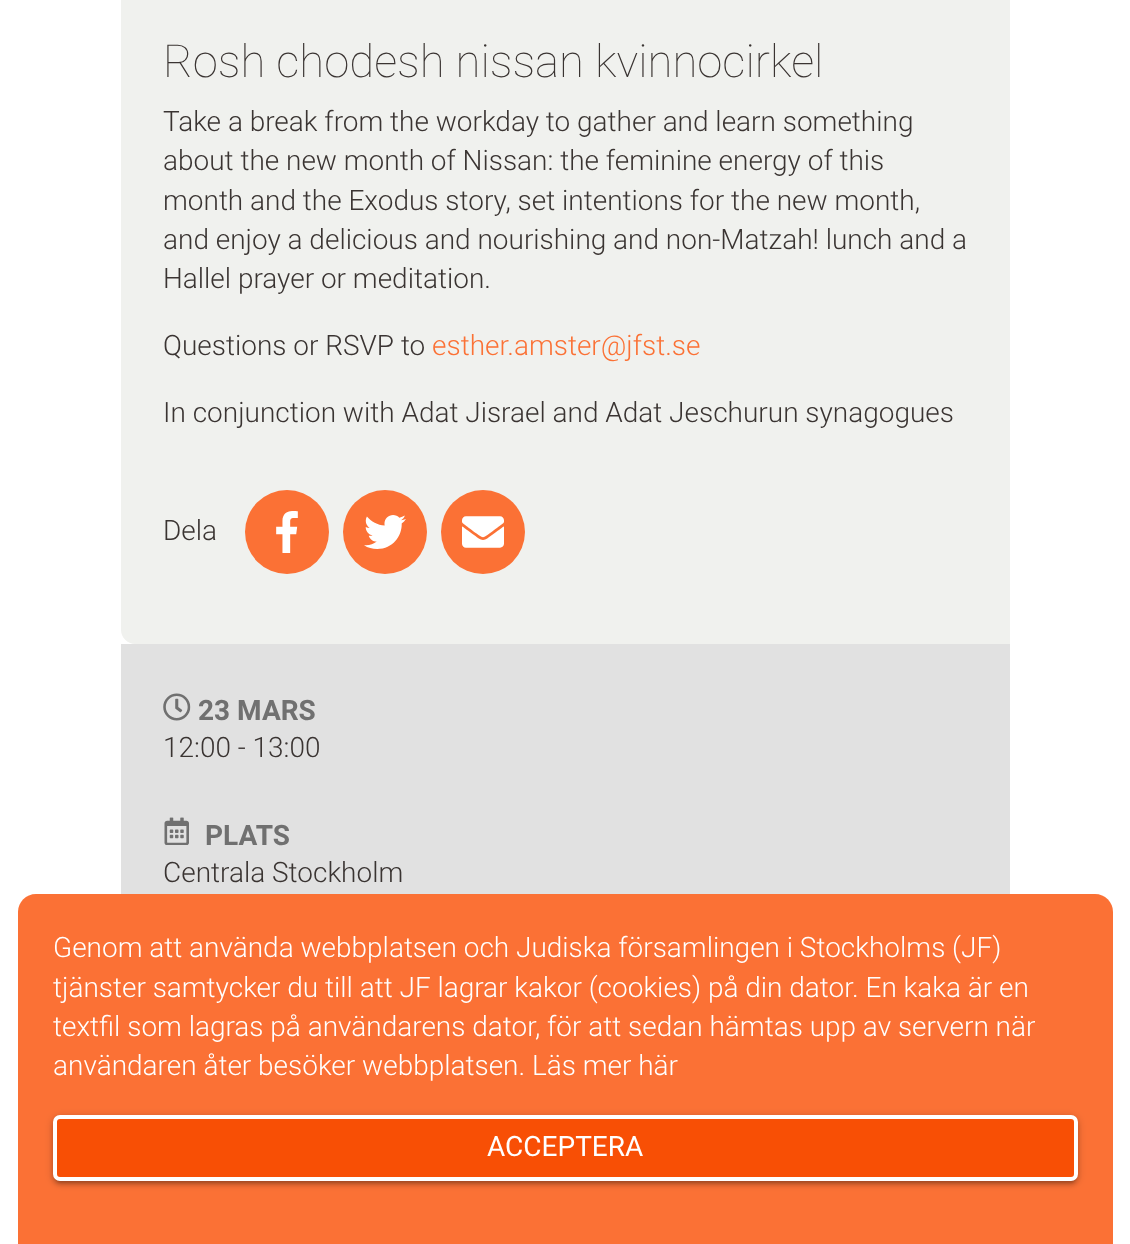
<svg xmlns="http://www.w3.org/2000/svg" width="1130" height="1244" viewBox="0 0 1130 1244">
  <defs>
    <filter id="blur1" x="-50%" y="-200%" width="200%" height="500%"><feGaussianBlur stdDeviation="4.5"/></filter>
    <filter id="blur2" x="-50%" y="-200%" width="200%" height="500%"><feGaussianBlur stdDeviation="1"/></filter>
    <filter id="blur3" x="-50%" y="-200%" width="200%" height="500%"><feGaussianBlur stdDeviation="2"/></filter>
  </defs>
  <rect width="100%" height="100%" fill="#ffffff"/>
  <path d="M121-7H1010V644H135C127.5 644 121 637.5 121 630Z" fill="#f0f1ee"/>
  <text x="163" y="77" font-family="Roboto" font-size="45.5" font-weight="100" fill="#3a3432">Rosh chodesh nissan kvinnocirkel</text>
  <text x="163" y="131" font-family="Roboto" font-size="28" font-weight="300" fill="#3a3432">Take a break from the workday to gather and learn something</text>
  <text x="163" y="170" font-family="Roboto" font-size="28" font-weight="300" fill="#3a3432">about the new month of Nissan: the feminine energy of this</text>
  <text x="163" y="210" font-family="Roboto" font-size="28" font-weight="300" fill="#3a3432">month and the Exodus story, set intentions for the new month,</text>
  <text x="163" y="249" font-family="Roboto" font-size="28" font-weight="300" fill="#3a3432">and enjoy a delicious and nourishing and non-Matzah! lunch and a</text>
  <text x="163" y="288" font-family="Roboto" font-size="28" font-weight="300" fill="#3a3432">Hallel prayer or meditation.</text>
  <text x="163" y="355" font-family="Roboto" font-size="28" font-weight="300" fill="#3a3432">Questions or RSVP to</text>
  <text x="432" y="355" font-family="Roboto" font-size="28" font-weight="300" fill="#fb7135">esther.amster@jfst.se</text>
  <text x="163" y="422" font-family="Roboto" font-size="28" font-weight="300" fill="#3a3432">In conjunction with Adat Jisrael and Adat Jeschurun synagogues</text>
  <text x="163" y="540" font-family="Roboto" font-size="28" font-weight="300" fill="#3a3432">Dela</text>
  <circle cx="287" cy="532" r="42" fill="#fb7135"/>
  <image x="276" y="511" width="22" height="42" href="img1.png"/>
  <circle cx="385" cy="532" r="42" fill="#fb7135"/>
  <image x="364" y="515" width="42" height="34" href="img2.png"/>
  <circle cx="483" cy="532" r="42" fill="#fb7135"/>
  <image x="462" y="516" width="42" height="32" href="img3.png"/>
  <rect x="121" y="644" width="889" height="250" fill="#e1e1e1"/>
  <image x="163" y="693" width="28" height="28" href="img4.png"/>
  <text x="198" y="720" font-family="Roboto" font-size="28" font-weight="bold" fill="#707070">23 MARS</text>
  <text x="163" y="757" font-family="Roboto" font-size="28" font-weight="300" fill="#3a3432">12:00 - 13:00</text>
  <image x="164" y="817" width="25" height="28" href="img5.png"/>
  <text x="205" y="845" font-family="Roboto" font-size="28" font-weight="bold" fill="#707070">PLATS</text>
  <text x="163" y="882" font-family="Roboto" font-size="28" font-weight="300" fill="#3a3432">Centrala Stockholm</text>
  <path d="M36 894H1095C1105 894 1113 902 1113 912V1244H18V912C18 902 26 894 36 894Z" fill="#fb7135"/>
  <text x="53" y="957" font-family="Roboto" font-size="28" font-weight="300" fill="#ffffff">Genom att använda webbplatsen och Judiska församlingen i Stockholms (JF)</text>
  <text x="53" y="997" font-family="Roboto" font-size="28" font-weight="300" fill="#ffffff">tjänster samtycker du till att JF lagrar kakor (cookies) på din dator. En kaka är en</text>
  <text x="53" y="1036" font-family="Roboto" font-size="28" font-weight="300" fill="#ffffff">textfil som lagras på användarens dator, för att sedan hämtas upp av servern när</text>
  <text x="53" y="1075" font-family="Roboto" font-size="28" font-weight="300" fill="#ffffff">användaren åter besöker webbplatsen. Läs mer här</text>
  <rect x="53" y="1117" width="1025" height="66" rx="7" fill="#000000" fill-opacity="0.2" filter="url(#blur1)"/>
  <rect x="56" y="1124" width="1019" height="59" rx="4" fill="#000000" fill-opacity="0.12" filter="url(#blur2)"/>
  <rect x="53" y="1118" width="1025" height="67" rx="7" fill="#000000" fill-opacity="0.14" filter="url(#blur3)"/>
  <rect x="55" y="1117" width="1021" height="62" rx="5" fill="#f84f05" stroke="#ffffff" stroke-width="4"/>
  <text x="487" y="1156" font-family="Roboto" font-size="28" fill="#ffffff">ACCEPTERA</text>
</svg>
